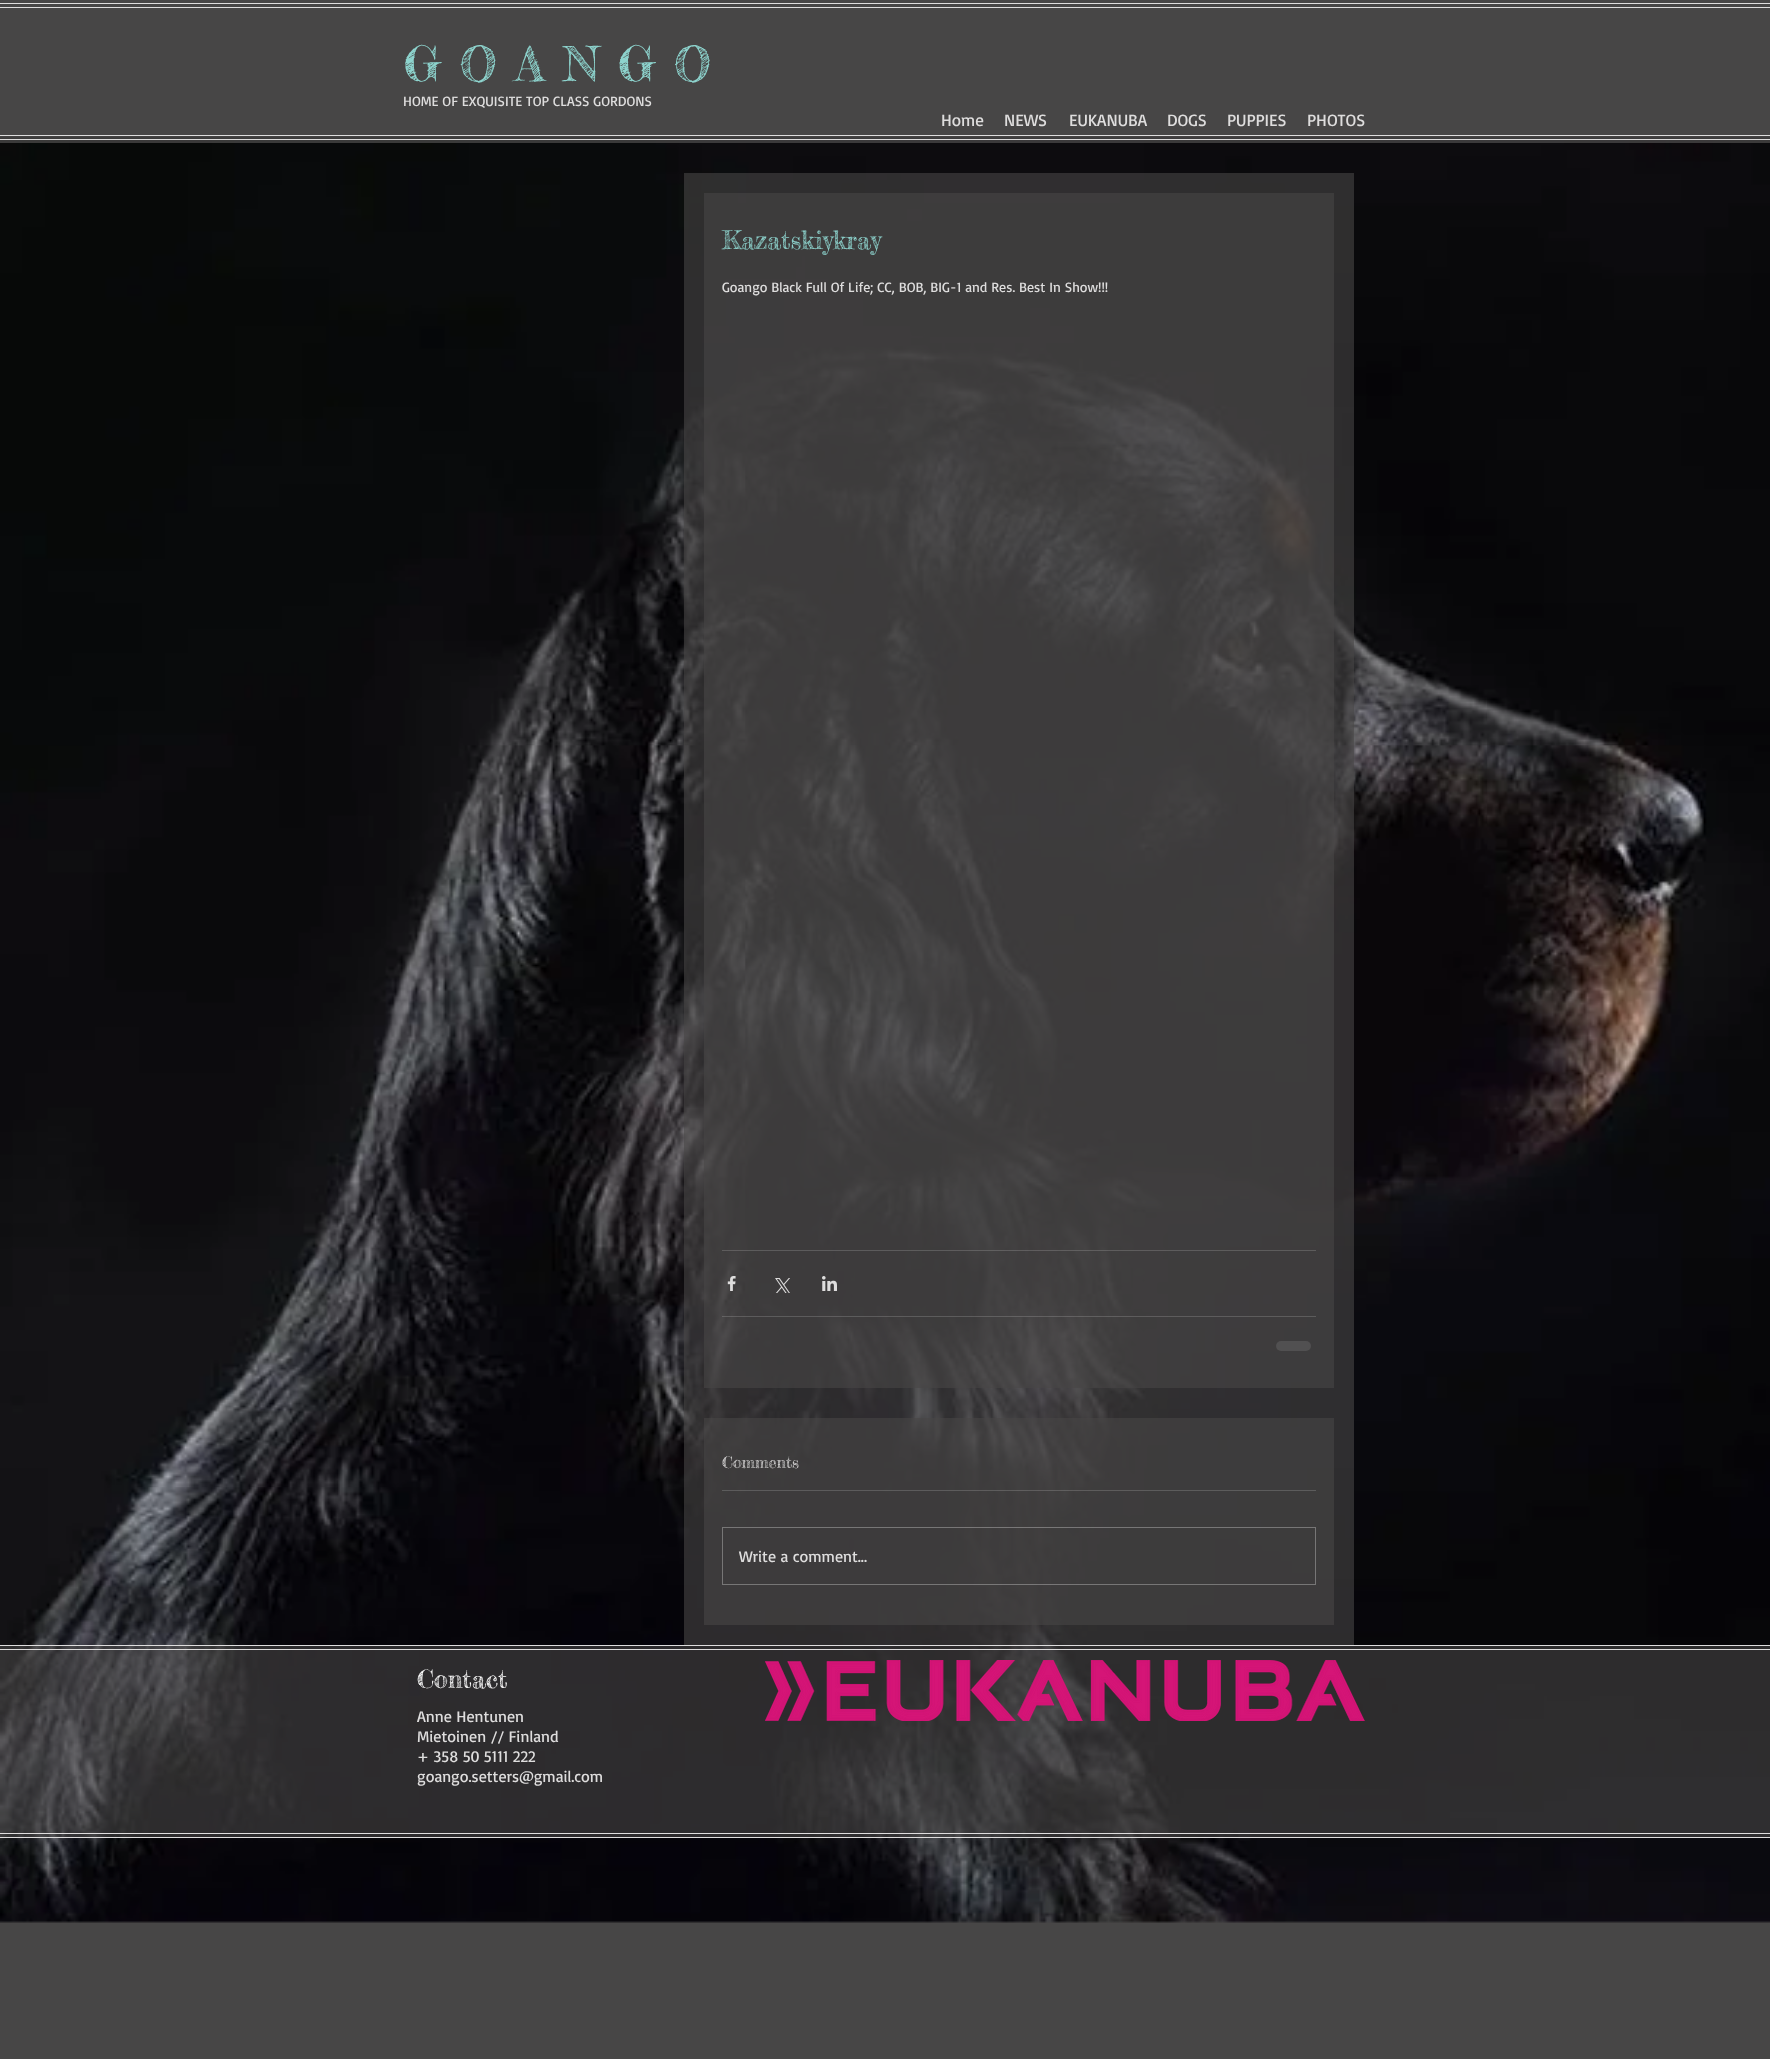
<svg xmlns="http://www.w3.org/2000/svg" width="1770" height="2059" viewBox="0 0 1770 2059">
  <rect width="100%" height="100%" fill="#474646"/>
  <rect x="0" y="3" width="1770" height="1" fill="#dedddd"/>
  <image x="0" y="136" width="1770" height="1787" href="img5.png"/>
  <rect x="0" y="136" width="1770" height="7" fill="#474646" fill-opacity="0.8"/>
  <rect x="0" y="139" width="1770" height="1" fill="#dedddd"/>
  <rect x="0" y="7" width="1770" height="1" fill="#dedddd"/>
  <rect x="0" y="135" width="1770" height="1" fill="#dedddd"/>
  <text x="404" y="81" font-family="Fredericka the Great" font-size="48" letter-spacing="19.25" fill="#8dd3cd">GOANGO</text>
  <text x="403" y="106" font-family="Basic" font-size="14" fill="#dedddd">HOME OF EXQUISITE TOP CLASS GORDONS</text>
  <text x="941" y="126" font-family="Basic" font-size="17" fill="#dedddd">Home</text>
  <text x="1004" y="126" font-family="Basic" font-size="17" fill="#dedddd">NEWS</text>
  <text x="1069" y="126" font-family="Basic" font-size="17" fill="#dedddd">EUKANUBA</text>
  <text x="1167" y="126" font-family="Basic" font-size="17" fill="#dedddd">DOGS</text>
  <text x="1227" y="126" font-family="Basic" font-size="17" fill="#dedddd">PUPPIES</text>
  <text x="1307" y="126" font-family="Basic" font-size="17" fill="#dedddd">PHOTOS</text>
  <rect x="684" y="173" width="670" height="1472" fill="#474646" fill-opacity="0.6"/>
  <rect x="704" y="193" width="630" height="1195" fill="#474646" fill-opacity="0.6"/>
  <text x="722" y="249" font-family="Fredericka the Great" font-size="25" fill="#8dd3cd">Kazatskiykray</text>
  <text x="722" y="292" font-family="Basic" font-size="14" fill="#dedddd">Goango Black Full Of Life; CC, BOB, BIG-1 and Res. Best In Show!!!</text>
  <rect x="722" y="1250" width="594" height="1" fill="#dedddd" fill-opacity="0.2"/>
  <image x="727" y="1276" width="9" height="15" href="img1.png"/>
  <image x="775" y="1278" width="15" height="15" href="img2.png"/>
  <image x="822" y="1276" width="15" height="15" href="img3.png"/>
  <rect x="722" y="1316" width="594" height="1" fill="#dedddd" fill-opacity="0.2"/>
  <rect x="1276" y="1341" width="35" height="10" rx="5" fill="#515051"/>
  <rect x="704" y="1418" width="630" height="207" fill="#474646" fill-opacity="0.6"/>
  <text x="722" y="1468" font-family="Fredericka the Great" font-size="16" fill="#dedddd">Comments</text>
  <rect x="722" y="1490" width="594" height="1" fill="#dedddd" fill-opacity="0.2"/>
  <rect x="722.5" y="1527.5" width="593" height="57" fill="none" stroke="#ffffff" stroke-opacity="0.3"/>
  <text x="739" y="1562" font-family="Basic" font-size="16" fill="#dedddd">Write a comment...</text>
  <rect x="0" y="1645" width="1770" height="1" fill="#dedddd"/>
  <rect x="0" y="1837" width="1770" height="1" fill="#dedddd"/>
  <rect x="0" y="1646" width="1770" height="191" fill="#474646" fill-opacity="0.6"/>
  <rect x="0" y="1649" width="1770" height="1" fill="#dedddd"/>
  <rect x="0" y="1833" width="1770" height="1" fill="#dedddd"/>
  <text x="417" y="1688" font-family="Fredericka the Great" font-size="25" fill="#ffffff">Contact</text>
  <image x="765" y="1660" width="600" height="61" href="img4.png"/>
  <text x="417" y="1722" font-family="Basic" font-size="16" fill="#dedddd">Anne Hentunen</text>
  <text x="417" y="1742" font-family="Basic" font-size="16" fill="#dedddd">Mietoinen // Finland</text>
  <text x="417" y="1762" font-family="Basic" font-size="16" fill="#dedddd">+ 358 50 5111 222</text>
  <text x="417" y="1782" font-family="Basic" font-size="16" fill="#dedddd">goango.setters@gmail.com</text>
</svg>
